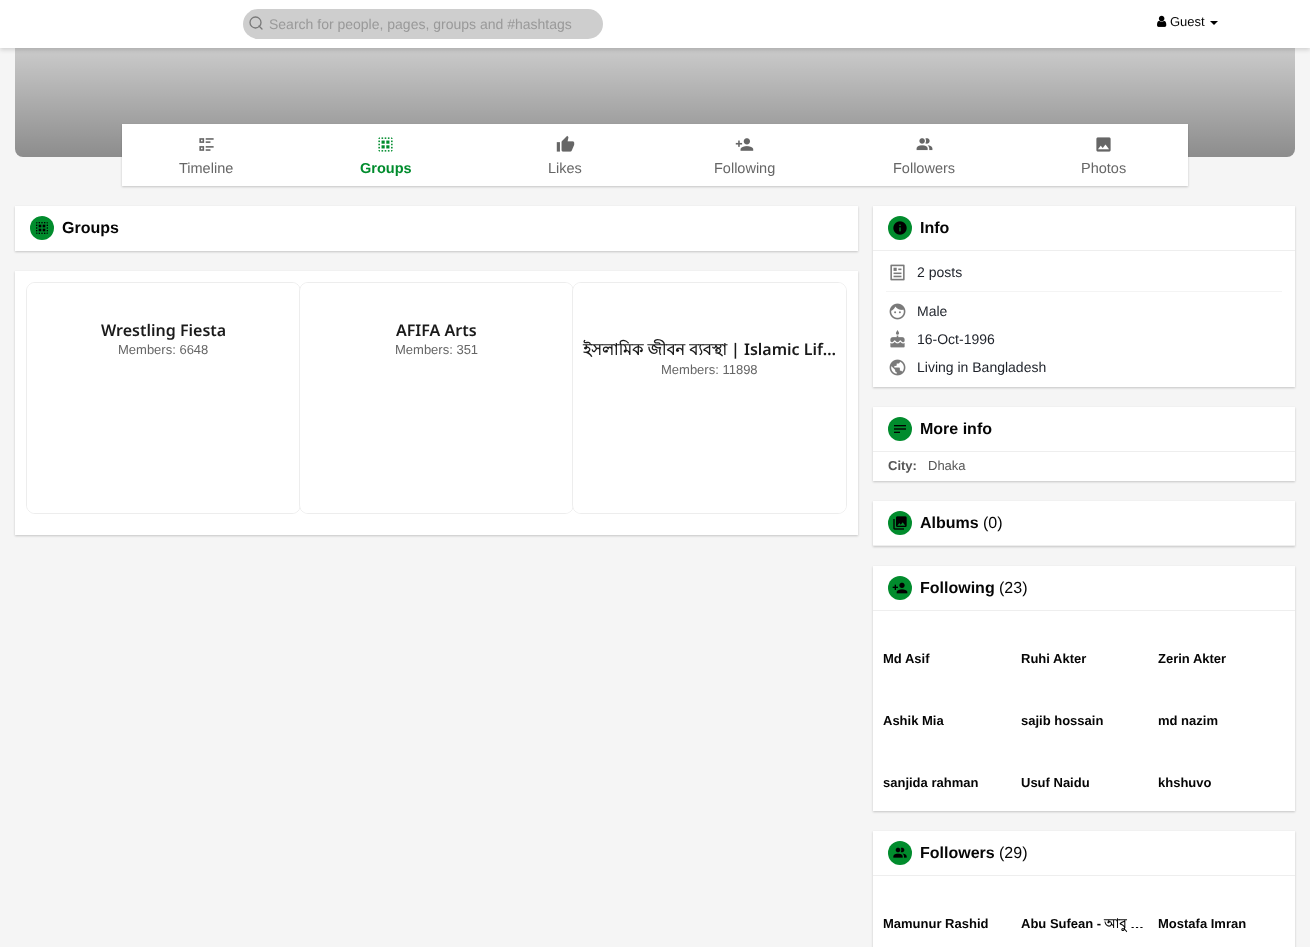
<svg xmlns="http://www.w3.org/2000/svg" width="1310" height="947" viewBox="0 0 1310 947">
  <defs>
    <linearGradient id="g1" gradientUnits="userSpaceOnUse" x1="655" y1="-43" x2="655" y2="157"><stop offset="0" stop-color="#000000" stop-opacity="0"/><stop offset="1" stop-color="#000000" stop-opacity="0.45"/></linearGradient>
    <filter id="blur1" x="-50%" y="-200%" width="200%" height="500%"><feGaussianBlur stdDeviation="2"/></filter>
    <filter id="blur2" x="-50%" y="-200%" width="200%" height="500%"><feGaussianBlur stdDeviation="1"/></filter>
  </defs>
  <rect width="100%" height="100%" fill="#f5f5f5"/>
  <path d="M15-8H1295V149C1295 153.5 1291.5 157 1287 157H23C18.5 157 15 153.5 15 149Z" fill="#ffffff"/>
  <rect x="15" y="-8" width="1280" height="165" rx="8" fill="url(#g1)"/>
  <rect x="0" y="2" width="1310" height="48" fill="#000000" fill-opacity="0.15" filter="url(#blur1)"/>
  <rect x="0" y="0" width="1310" height="48" fill="#ffffff"/>
  <rect x="243" y="9" width="360" height="30" rx="15" fill="#cecece"/>
  <circle cx="255.5" cy="22.5" r="5.5" fill="none" stroke="#787878" stroke-width="1.3"/>
  <path d="M262 29L259 26" fill="none" stroke="#787878" stroke-width="1.3" stroke-linecap="round" stroke-linejoin="round"/>
  <text x="269" y="29" font-family="Liberation Sans" font-size="14" fill="#999999">Search for people, pages, groups and #hashtags</text>
  <image x="1157" y="15" width="10" height="12" href="img1.png"/>
  <text x="1170" y="26" font-family="Liberation Sans" font-size="13" fill="#050505">Guest</text>
  <path d="M1210 21H1218L1214 25Z" fill="#000000"/>
  <rect x="122" y="125" width="1066" height="62" fill="#000000" fill-opacity="0.2" filter="url(#blur2)"/>
  <rect x="122" y="124" width="1066" height="62" fill="#ffffff"/>
  <image x="199" y="138" width="15" height="13" href="img2.png"/>
  <text x="179" y="173" font-family="Liberation Sans" font-size="14.5" fill="#666666">Timeline</text>
  <image x="378" y="137" width="15" height="15" href="img3.png"/>
  <text x="360" y="173" font-family="Liberation Sans" font-size="14.5" font-weight="bold" fill="#018c2d">Groups</text>
  <image x="556" y="135" width="19" height="17" href="img4.png"/>
  <text x="548" y="173" font-family="Liberation Sans" font-size="14.5" fill="#666666">Likes</text>
  <image x="735" y="138" width="19" height="13" href="img5.png"/>
  <text x="714" y="173" font-family="Liberation Sans" font-size="14.5" fill="#666666">Following</text>
  <image x="916" y="138" width="17" height="13" href="img6.png"/>
  <text x="893" y="173" font-family="Liberation Sans" font-size="14.5" fill="#666666">Followers</text>
  <image x="1096" y="137" width="15" height="15" href="img7.png"/>
  <text x="1081" y="173" font-family="Liberation Sans" font-size="14.5" fill="#666666">Photos</text>
  <rect x="15" y="207" width="843" height="45" fill="#000000" fill-opacity="0.2" filter="url(#blur2)"/>
  <rect x="15" y="206" width="843" height="45" fill="#ffffff"/>
  <circle cx="42" cy="228" r="12" fill="#018c2d"/>
  <image x="36" y="222" width="12" height="12" href="img8.png"/>
  <text x="62" y="233" font-family="Liberation Sans" font-size="16" font-weight="bold" fill="#050505">Groups</text>
  <rect x="15" y="272" width="843" height="264" fill="#000000" fill-opacity="0.2" filter="url(#blur2)"/>
  <rect x="15" y="271" width="843" height="264" fill="#ffffff"/>
  <rect x="26.5" y="282.5" width="274" height="231" rx="8.5" fill="none" stroke="#ededed"/>
  <rect x="27" y="283" width="273" height="230" rx="8" fill="#ffffff"/>
  <text x="101" y="336" font-family="Noto Sans" font-size="16" font-weight="600" fill="#1a1a1a">Wrestling Fiesta</text>
  <text x="118" y="354" font-family="Liberation Sans" font-size="13" fill="#666666">Members: 6648</text>
  <rect x="299.5" y="282.5" width="274" height="231" rx="8.5" fill="none" stroke="#000000" stroke-opacity="0.07"/>
  <rect x="300" y="283" width="273" height="230" rx="8" fill="#ffffff"/>
  <text x="396" y="336" font-family="Noto Sans" font-size="16" font-weight="600" fill="#1a1a1a">AFIFA Arts</text>
  <text x="395" y="354" font-family="Liberation Sans" font-size="13" fill="#666666">Members: 351</text>
  <rect x="572.5" y="282.5" width="274" height="231" rx="8.5" fill="none" stroke="#000000" stroke-opacity="0.07"/>
  <rect x="573" y="283" width="273" height="230" rx="8" fill="#ffffff"/>
  <text x="583" y="355" font-family="Lohit Bengali" font-size="16" font-weight="bold" fill="#1a1a1a">ইসলামিক জীবন ব্যবস্থা</text>
  <text x="731" y="355" font-family="Noto Sans" font-size="16" font-weight="600" fill="#1a1a1a">| Islamic Lif…</text>
  <text x="661" y="374" font-family="Liberation Sans" font-size="13" fill="#666666">Members: 11898</text>
  <rect x="873" y="207" width="422" height="181" fill="#000000" fill-opacity="0.2" filter="url(#blur2)"/>
  <rect x="873" y="206" width="422" height="181" fill="#ffffff"/>
  <rect x="873" y="250" width="422" height="1" fill="#eeeeee"/>
  <circle cx="900" cy="228" r="12" fill="#018c2d"/>
  <image x="893" y="221" width="14" height="14" href="img9.png"/>
  <text x="920" y="233" font-family="Liberation Sans" font-size="16" font-weight="bold" fill="#050505">Info</text>
  <image x="890" y="264" width="15" height="17" href="img10.png"/>
  <text x="917" y="277" font-family="Liberation Sans" font-size="14" fill="#1d2129">2 posts</text>
  <rect x="886" y="291" width="396" height="1" fill="#f4f4f4"/>
  <image x="889" y="303" width="17" height="17" href="img11.png"/>
  <text x="917" y="316" font-family="Liberation Sans" font-size="14" fill="#1d2129">Male</text>
  <image x="890" y="330" width="15" height="18" href="img12.png"/>
  <text x="917" y="344" font-family="Liberation Sans" font-size="14" fill="#1d2129">16-Oct-1996</text>
  <image x="889" y="359" width="17" height="17" href="img13.png"/>
  <text x="917" y="372" font-family="Liberation Sans" font-size="14" fill="#1d2129">Living in Bangladesh</text>
  <rect x="873" y="408" width="422" height="74" fill="#000000" fill-opacity="0.2" filter="url(#blur2)"/>
  <rect x="873" y="407" width="422" height="74" fill="#ffffff"/>
  <rect x="873" y="451" width="422" height="1" fill="#eeeeee"/>
  <circle cx="900" cy="429" r="12" fill="#018c2d"/>
  <image x="894" y="425" width="12" height="8" href="img14.png"/>
  <text x="920" y="434" font-family="Liberation Sans" font-size="16" font-weight="bold" fill="#050505">More info</text>
  <text x="888" y="470" font-family="Liberation Sans" font-size="13" font-weight="bold" fill="#555555">City:</text>
  <text x="928" y="470" font-family="Liberation Sans" font-size="13" fill="#555555">Dhaka</text>
  <rect x="873" y="502" width="422" height="45" fill="#000000" fill-opacity="0.2" filter="url(#blur2)"/>
  <rect x="873" y="501" width="422" height="44" fill="#ffffff"/>
  <rect x="873" y="545" width="422" height="1" fill="#eeeeee"/>
  <circle cx="900" cy="523" r="12" fill="#018c2d"/>
  <image x="893" y="516" width="14" height="14" href="img15.png"/>
  <text x="920" y="528" font-family="Liberation Sans" font-size="16" font-weight="bold" fill="#050505">Albums</text>
  <text x="983" y="528" font-family="Liberation Sans" font-size="16" fill="#050505">(0)</text>
  <rect x="873" y="567" width="422" height="245" fill="#000000" fill-opacity="0.2" filter="url(#blur2)"/>
  <rect x="873" y="566" width="422" height="245" fill="#ffffff"/>
  <rect x="873" y="610" width="422" height="1" fill="#eeeeee"/>
  <circle cx="900" cy="588" r="12" fill="#018c2d"/>
  <image x="892" y="582" width="16" height="12" href="img16.png"/>
  <text x="920" y="593" font-family="Liberation Sans" font-size="16" font-weight="bold" fill="#050505">Following</text>
  <text x="999" y="593" font-family="Liberation Sans" font-size="16" fill="#050505">(23)</text>
  <text x="883" y="663" font-family="Liberation Sans" font-size="13" font-weight="bold" fill="#050505">Md Asif</text>
  <text x="1021" y="663" font-family="Liberation Sans" font-size="13" font-weight="bold" fill="#050505">Ruhi Akter</text>
  <text x="1158" y="663" font-family="Liberation Sans" font-size="13" font-weight="bold" fill="#050505">Zerin Akter</text>
  <text x="883" y="725" font-family="Liberation Sans" font-size="13" font-weight="bold" fill="#050505">Ashik Mia</text>
  <text x="1021" y="725" font-family="Liberation Sans" font-size="13" font-weight="bold" fill="#050505">sajib hossain</text>
  <text x="1158" y="725" font-family="Liberation Sans" font-size="13" font-weight="bold" fill="#050505">md nazim</text>
  <text x="883" y="787" font-family="Liberation Sans" font-size="13" font-weight="bold" fill="#050505">sanjida rahman</text>
  <text x="1021" y="787" font-family="Liberation Sans" font-size="13" font-weight="bold" fill="#050505">Usuf Naidu</text>
  <text x="1158" y="787" font-family="Liberation Sans" font-size="13" font-weight="bold" fill="#050505">khshuvo</text>
  <rect x="873" y="832" width="422" height="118" fill="#000000" fill-opacity="0.2" filter="url(#blur2)"/>
  <rect x="873" y="831" width="422" height="116" fill="#ffffff"/>
  <rect x="873" y="875" width="422" height="1" fill="#eeeeee"/>
  <circle cx="900" cy="853" r="12" fill="#018c2d"/>
  <image x="893" y="847" width="14" height="11" href="img17.png"/>
  <text x="920" y="858" font-family="Liberation Sans" font-size="16" font-weight="bold" fill="#050505">Followers</text>
  <text x="999" y="858" font-family="Liberation Sans" font-size="16" fill="#050505">(29)</text>
  <text x="883" y="928" font-family="Liberation Sans" font-size="13" font-weight="bold" fill="#050505">Mamunur Rashid</text>
  <text x="1021" y="928" font-family="Liberation Sans" font-size="13" font-weight="bold" fill="#050505">Abu Sufean -</text>
  <text x="1104" y="928" font-family="Lohit Bengali" font-size="13" font-weight="bold" fill="#050505">আবু …</text>
  <text x="1158" y="928" font-family="Liberation Sans" font-size="13" font-weight="bold" fill="#050505">Mostafa Imran</text>
</svg>
